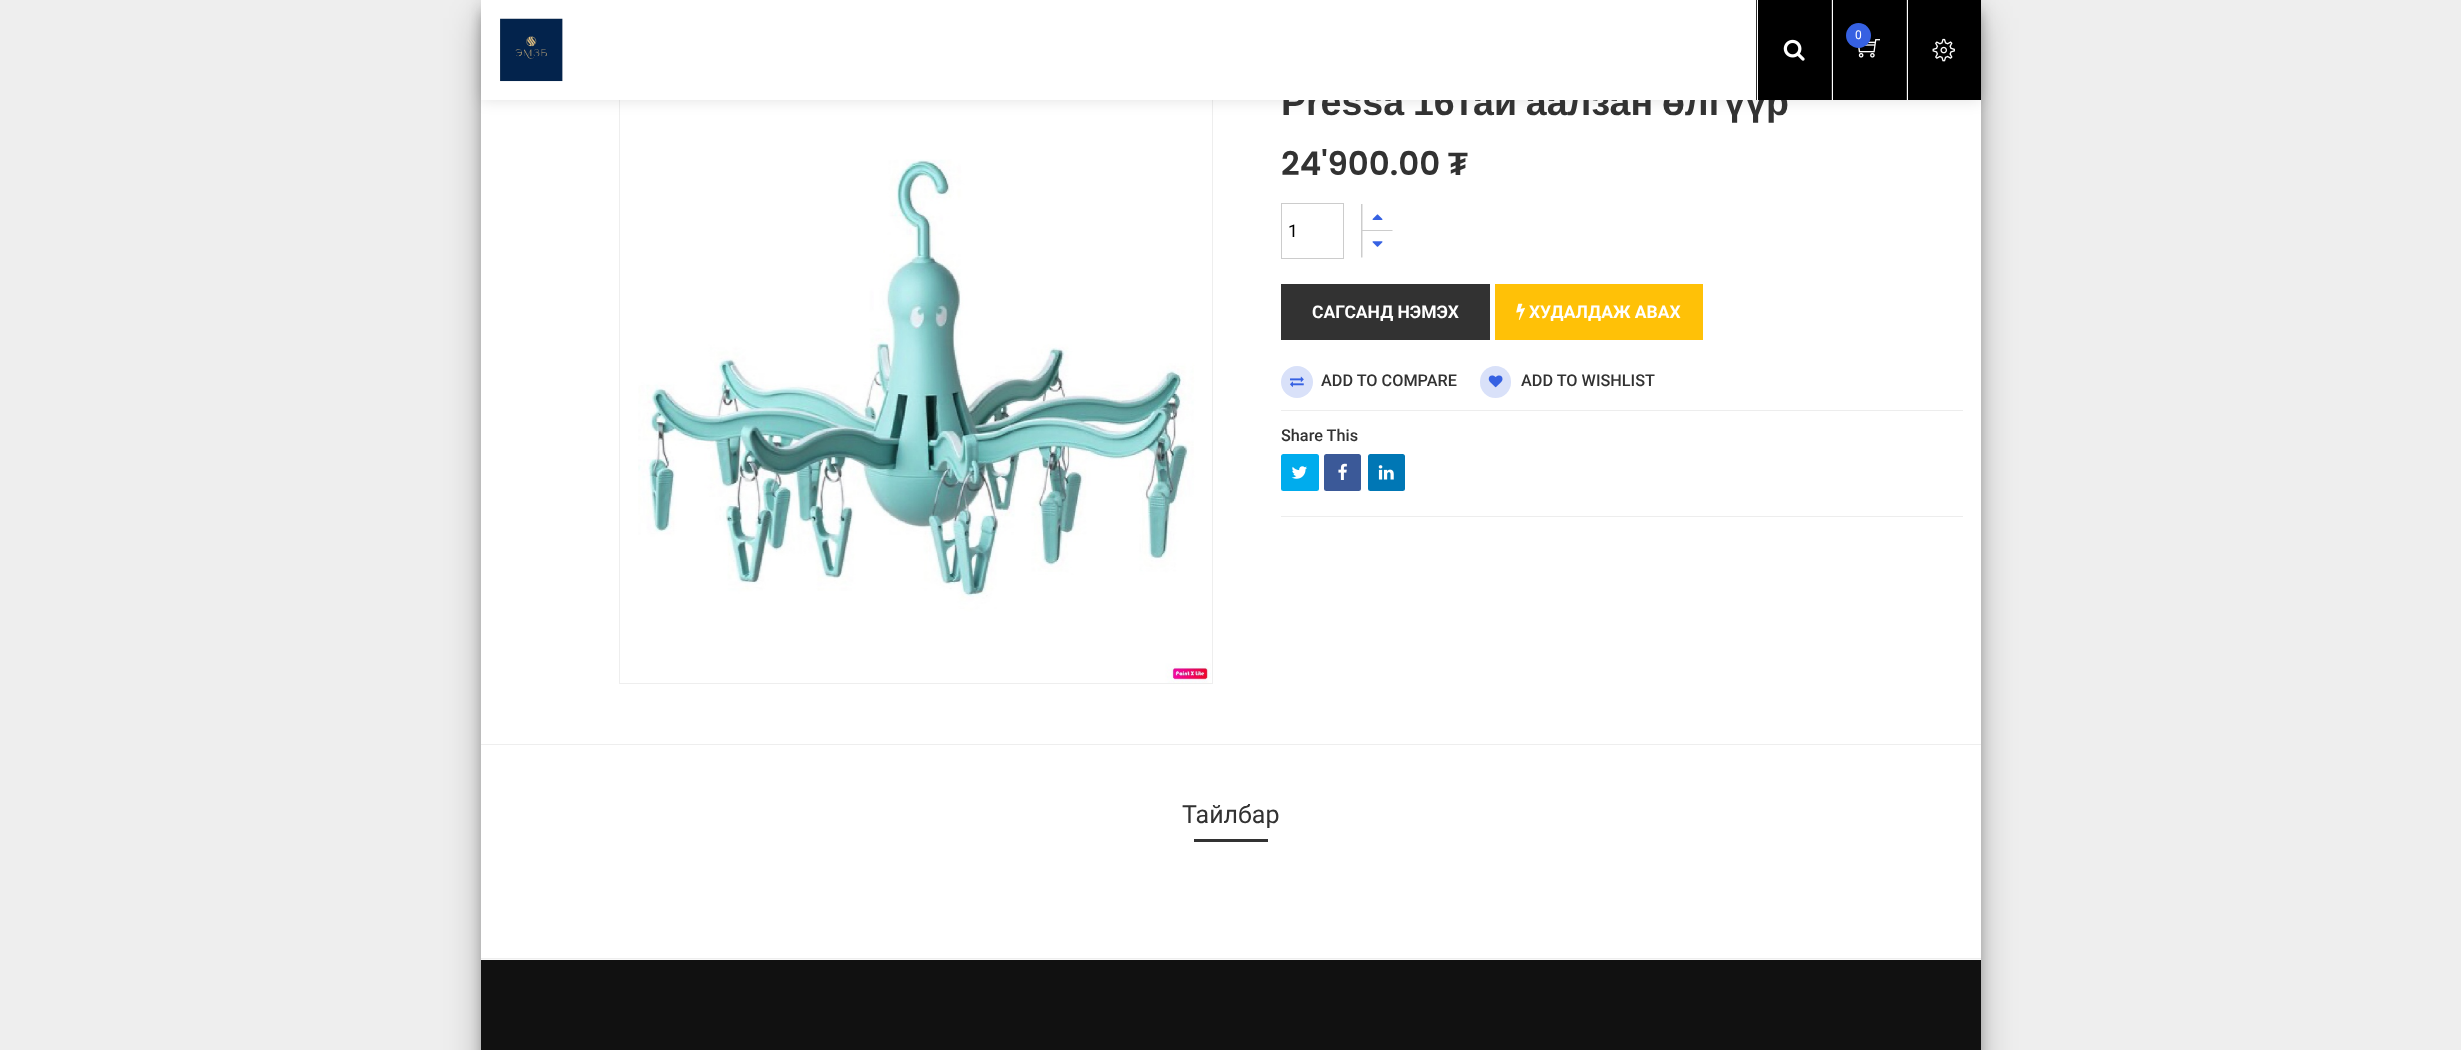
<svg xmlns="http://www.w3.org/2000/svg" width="2461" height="1050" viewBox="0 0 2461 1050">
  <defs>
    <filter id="blur1" x="-50%" y="-200%" width="200%" height="500%"><feGaussianBlur stdDeviation="6"/></filter>
    <filter id="blur2" x="-50%" y="-200%" width="200%" height="500%"><feGaussianBlur stdDeviation="17.5"/></filter>
    <filter id="blur3" x="-50%" y="-200%" width="200%" height="500%"><feGaussianBlur stdDeviation="7.5"/></filter>
  </defs>
  <rect width="100%" height="100%" fill="#eeeeee"/>
  <rect x="481" y="13" width="1500" height="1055" fill="#000000" fill-opacity="0.22" filter="url(#blur1)"/>
  <rect x="481" y="18" width="1500" height="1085" fill="#000000" fill-opacity="0.25" filter="url(#blur2)"/>
  <rect x="481" y="100" width="1500" height="858" fill="#ffffff"/>
  <rect x="619.5" y="80.5" width="593" height="603" fill="none" stroke="#eeeeee"/>
  <rect x="481" y="0" width="1500" height="100" fill="#000000" fill-opacity="0.12" filter="url(#blur3)"/>
  <text x="1281" y="115" word-spacing="-1.5" font-family="Liberation Sans" font-size="37.5" font-weight="bold" fill="#323232">Pressa 16тай аалзан өлгүүр</text>
  <rect x="481" y="0" width="1427" height="100" fill="#ffffff"/>
  <image x="500" y="18" width="63" height="64" href="img1.png"/>
  <rect x="1756" y="0" width="1" height="100" fill="#2b2b2b"/>
  <rect x="1758" y="0" width="73" height="100" fill="#000000"/>
  <image x="1783" y="39" width="22" height="22" href="img2.png"/>
  <rect x="1831" y="0" width="1" height="100" fill="#2b2b2b"/>
  <rect x="1833" y="0" width="73" height="100" fill="#000000"/>
  <image x="1858" y="39" width="22" height="19" href="img3.png"/>
  <circle cx="1858.5" cy="35.5" r="12.5" fill="#3661e2"/>
  <text x="1855" y="39" font-family="Roboto" font-size="12" fill="#ffffff">0</text>
  <rect x="1906" y="0" width="1" height="100" fill="#2b2b2b"/>
  <rect x="1908" y="0" width="73" height="100" fill="#000000"/>
  <image x="1932" y="38" width="23" height="24" href="img4.png"/>
  <image x="638" y="159" width="573" height="524" href="img5.png"/>
  <text x="1281" y="175" font-family="Poppins" font-size="32.5" font-weight="600" fill="#323232">24'900.00</text>
  <text x="1448" y="175" font-family="Liberation Sans" font-size="32.5" font-weight="bold" fill="#323232">₮</text>
  <rect x="1281.5" y="203.5" width="62" height="55" fill="none" stroke="#cccccc"/>
  <text x="1288" y="237" font-family="Roboto" font-size="17.5" fill="#000000">1</text>
  <path d="M1361 257.5V230L1362.5 231V257.5Z" fill="#000000" fill-opacity="0.2"/>
  <rect x="1361" y="230" width="2" height="1" fill="#ffffff"/>
  <path d="M1392.5 231H1361L1362.5 230H1392.5Z" fill="#cccccc"/>
  <path d="M1361 231V204H1362.5V230Z" fill="#000000" fill-opacity="0.2"/>
  <image x="1372" y="214" width="11" height="6" href="img6.png"/>
  <image x="1372" y="241" width="11" height="6" href="img7.png"/>
  <rect x="1281" y="284" width="209" height="56" fill="#323232"/>
  <text x="1312" y="318" font-family="Roboto" font-size="17.5" font-weight="bold" fill="#ffffff">САГСАНД НЭМЭХ</text>
  <rect x="1495" y="284" width="208" height="56" fill="#ffc107"/>
  <image x="1516" y="303" width="9" height="17" href="img8.png"/>
  <text x="1529" y="318" font-family="Roboto" font-size="17.5" font-weight="bold" fill="#ffffff">ХУДАЛДАЖ АВАХ</text>
  <circle cx="1297" cy="382" r="16" fill="#d9e1f9"/>
  <image x="1290" y="376" width="14" height="11" href="img9.png"/>
  <text x="1321" y="386" font-family="Roboto" font-size="16.25" font-weight="500" fill="#323232">ADD TO COMPARE</text>
  <rect x="1480" y="366" width="31" height="32" rx="15.5" fill="#d9e1f9"/>
  <image x="1488" y="375" width="15" height="13" href="img10.png"/>
  <text x="1521" y="386" font-family="Roboto" font-size="16.25" font-weight="500" fill="#323232">ADD TO WISHLIST</text>
  <rect x="1281" y="410" width="682" height="1" fill="#ededed"/>
  <text x="1281" y="441" font-family="Roboto" font-size="16.25" font-weight="500" fill="#323232">Share This</text>
  <rect x="1281" y="454" width="38" height="37" rx="2.5" fill="#00aced"/>
  <image x="1291" y="466" width="16" height="13" href="img11.png"/>
  <rect x="1324" y="454" width="37" height="37" rx="2.5" fill="#3b5998"/>
  <image x="1338" y="463" width="9" height="17" href="img12.png"/>
  <rect x="1368" y="454" width="37" height="37" rx="2.5" fill="#0077b5"/>
  <image x="1378" y="465" width="16" height="15" href="img13.png"/>
  <rect x="1281" y="516" width="682" height="1" fill="#ededed"/>
  <rect x="481" y="744" width="1500" height="1" fill="#eeeeee"/>
  <rect x="481" y="958" width="1500" height="1" fill="#eeeeee"/>
  <text x="1182" y="823" font-family="Roboto" font-size="25" fill="#323232">Тайлбар</text>
  <rect x="1194" y="839" width="74" height="3" fill="#323232"/>
  <rect x="481" y="959" width="1500" height="1" fill="#f9f9f9"/>
  <rect x="481" y="960" width="1500" height="90" fill="#111111"/>
</svg>
